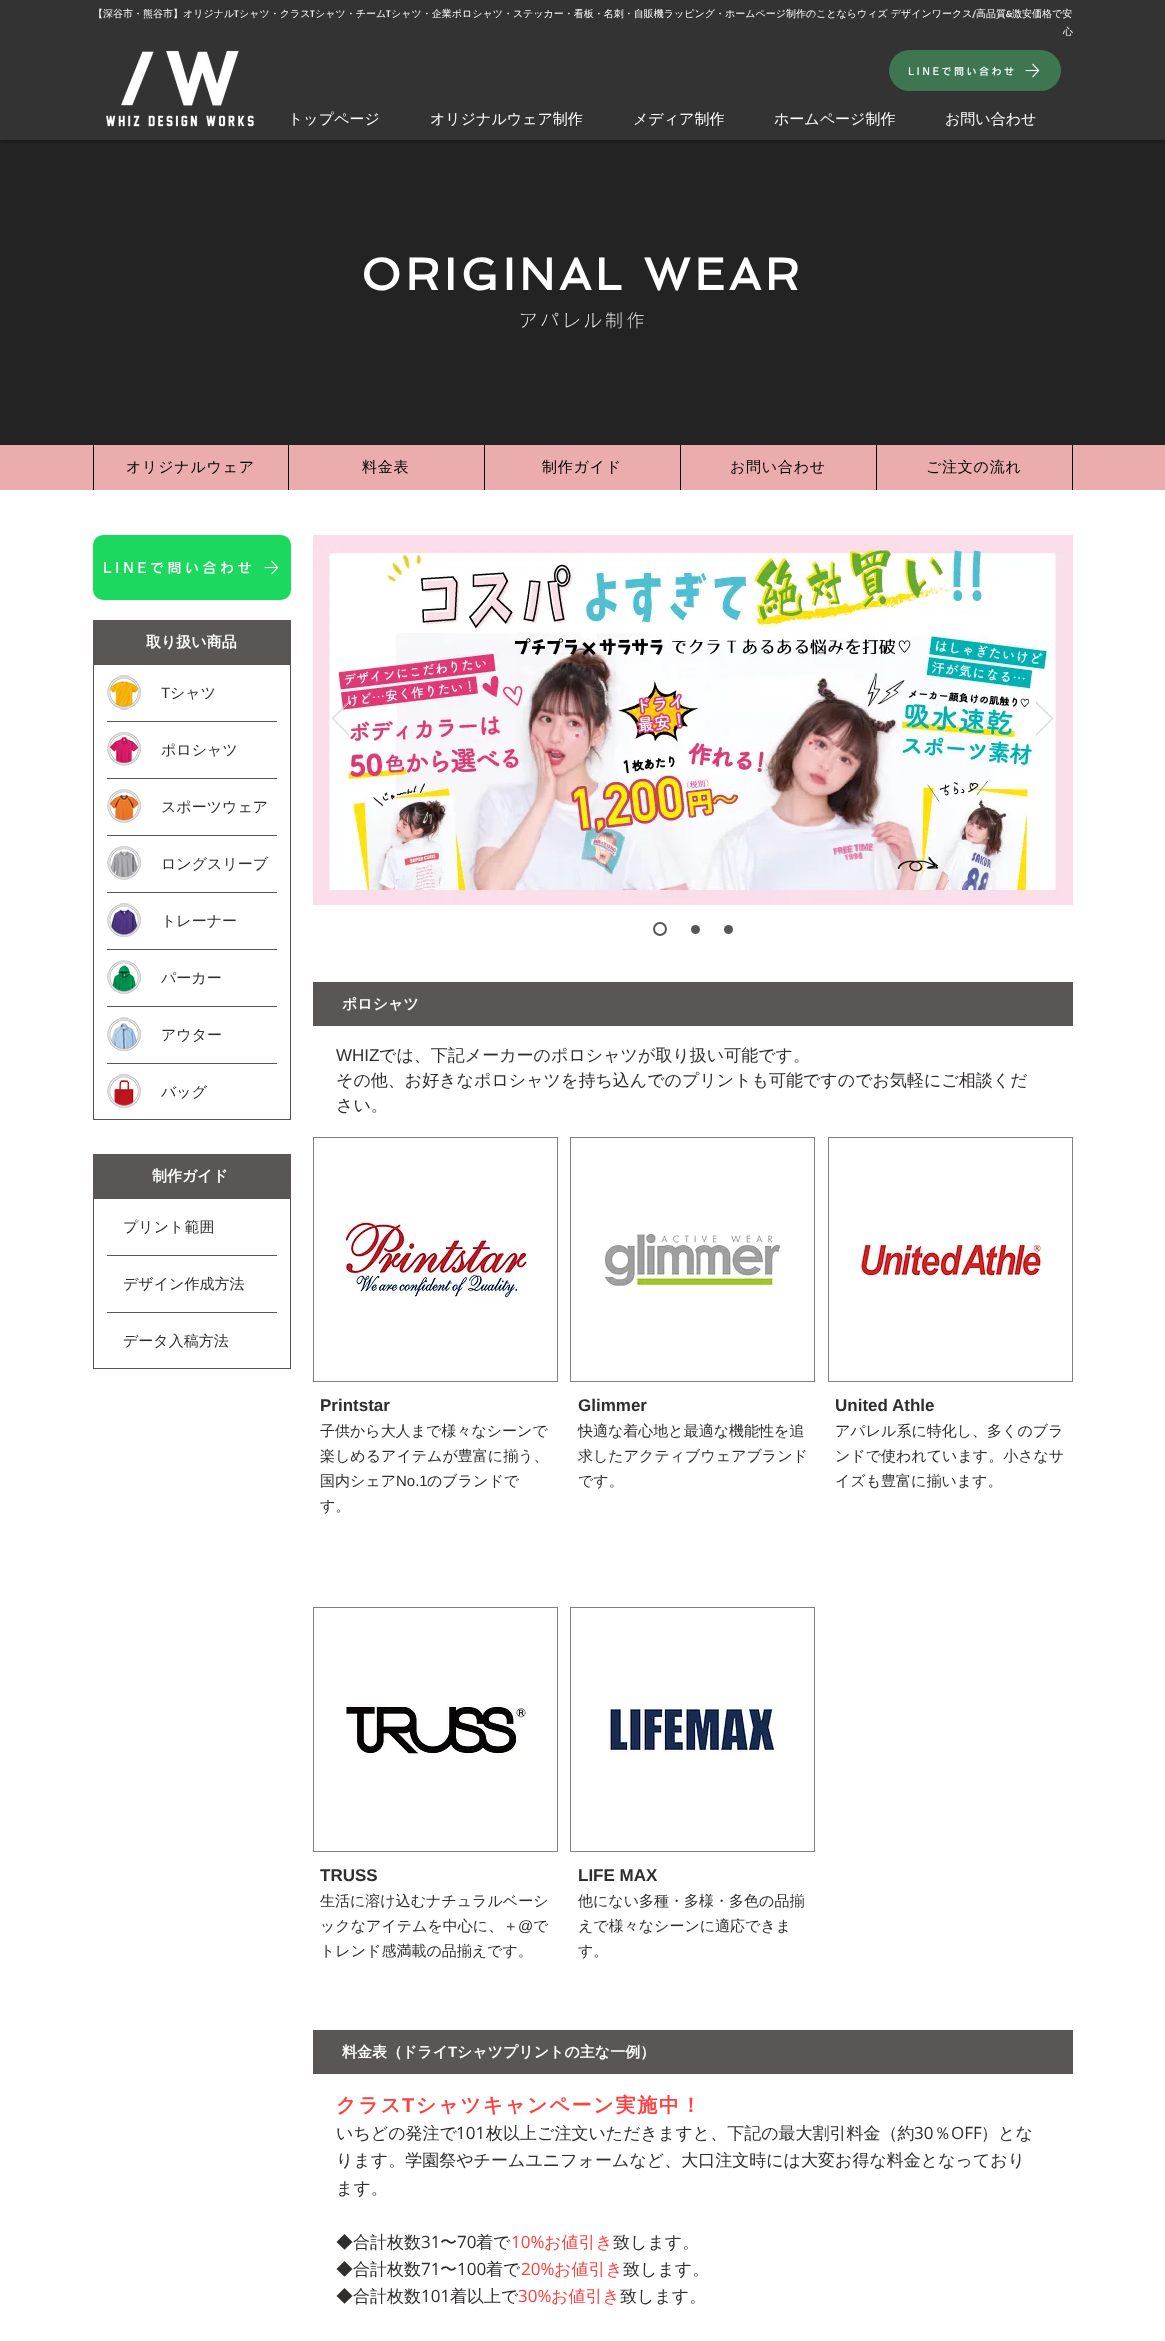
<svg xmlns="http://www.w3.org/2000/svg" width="1165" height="2341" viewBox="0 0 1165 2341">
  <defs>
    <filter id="blur1" x="-50%" y="-200%" width="200%" height="500%"><feGaussianBlur stdDeviation="2.5"/></filter>
    <clipPath id="clip1"><rect x="332" y="701" width="17" height="35"/></clipPath>
    <clipPath id="clip2"><rect x="1036" y="701" width="18" height="35"/></clipPath>
  </defs>
  <rect width="100%" height="100%" fill="#ffffff"/>
  <rect x="0" y="140" width="1165" height="305" fill="#242323"/>
  <rect x="0" y="0" width="1165" height="140" fill="#000000" fill-opacity="0.7" filter="url(#blur1)"/>
  <rect x="0" y="0" width="1165" height="140" fill="#333333"/>
  <text x="93" y="17" font-family="WenQuanYi Zen Hei" font-size="10" font-weight="500" fill="#ffffff">【深谷市・熊谷市】オリジナル</text>
  <text x="234" y="17" font-family="Basic" font-size="10" fill="#ffffff">T</text>
  <text x="239" y="17" font-family="WenQuanYi Zen Hei" font-size="10" font-weight="500" fill="#ffffff">シャツ・クラス</text>
  <text x="310" y="17" font-family="Basic" font-size="10" fill="#ffffff">T</text>
  <text x="315" y="17" font-family="WenQuanYi Zen Hei" font-size="10" font-weight="500" fill="#ffffff">シャツ・チーム</text>
  <text x="386" y="17" font-family="Basic" font-size="10" fill="#ffffff">T</text>
  <text x="391" y="17" font-family="WenQuanYi Zen Hei" font-size="10" font-weight="500" fill="#ffffff">シャツ・企業ポロシャツ・ステッカー・看板・名刺・自販機ラッピング・ホームページ制作のことならウィズ デザインワークス</text>
  <text x="972" y="17" font-family="Basic" font-size="10" fill="#ffffff">/</text>
  <text x="976" y="17" font-family="WenQuanYi Zen Hei" font-size="10" font-weight="500" fill="#ffffff">高品質</text>
  <text x="1006" y="17" font-family="Basic" font-size="10" fill="#ffffff">&amp;</text>
  <text x="1012" y="17" font-family="WenQuanYi Zen Hei" font-size="10" font-weight="500" fill="#ffffff">激安価格で安</text>
  <text x="1063" y="35" font-family="WenQuanYi Zen Hei" font-size="10" font-weight="500" fill="#ffffff">心</text>
  <image x="106" y="50" width="148" height="77" href="img1.png"/>
  <rect x="889" y="50" width="172" height="41" rx="20.5" fill="#3f7652"/>
  <text x="908" y="75" font-family="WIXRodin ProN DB" font-size="10" font-weight="600" letter-spacing="2.5" fill="#ffffff">LINEで問い合わせ</text>
  <image x="1025" y="63" width="15" height="15" href="img2.png"/>
  <text x="288" y="124" font-family="WenQuanYi Zen Hei" font-size="15" font-weight="500" fill="#ffffff">トップページ</text>
  <text x="430" y="124" font-family="WenQuanYi Zen Hei" font-size="15" font-weight="500" fill="#ffffff">オリジナルウェア制作</text>
  <text x="633" y="124" font-family="WenQuanYi Zen Hei" font-size="15" font-weight="500" fill="#ffffff">メディア制作</text>
  <text x="774" y="124" font-family="WenQuanYi Zen Hei" font-size="15" font-weight="500" fill="#ffffff">ホームページ制作</text>
  <text x="945" y="124" font-family="WenQuanYi Zen Hei" font-size="15" font-weight="500" fill="#ffffff">お問い合わせ</text>
  <text x="361" y="290" font-family="Spinnaker" font-size="45" font-weight="bold" letter-spacing="4.5" fill="#ffffff">ORIGINAL WEAR</text>
  <text x="519" y="327" font-family="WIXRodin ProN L" font-size="18" font-weight="300" letter-spacing="3.5" fill="#ffffff">アパレル制作</text>
  <rect x="0" y="445" width="1165" height="45" fill="#eaacac"/>
  <rect x="288" y="445" width="1" height="45" fill="#000000"/>
  <rect x="93" y="445" width="1" height="45" fill="#000000"/>
  <text x="126" y="472" font-family="WenQuanYi Zen Hei" font-size="15" font-weight="500" letter-spacing="0.75" fill="#000000">オリジナルウェア</text>
  <rect x="484" y="445" width="1" height="45" fill="#000000"/>
  <text x="362" y="472" font-family="WenQuanYi Zen Hei" font-size="15" font-weight="500" letter-spacing="0.75" fill="#000000">料金表</text>
  <rect x="680" y="445" width="1" height="45" fill="#000000"/>
  <text x="542" y="472" font-family="WenQuanYi Zen Hei" font-size="15" font-weight="500" letter-spacing="0.75" fill="#000000">制作ガイド</text>
  <rect x="876" y="445" width="1" height="45" fill="#000000"/>
  <text x="730" y="472" font-family="WenQuanYi Zen Hei" font-size="15" font-weight="500" letter-spacing="0.75" fill="#000000">お問い合わせ</text>
  <rect x="1072" y="445" width="1" height="45" fill="#000000"/>
  <text x="926" y="472" font-family="WenQuanYi Zen Hei" font-size="15" font-weight="500" letter-spacing="0.75" fill="#000000">ご注文の流れ</text>
  <rect x="93" y="535" width="198" height="65" rx="10" fill="#1dd85e"/>
  <text x="103" y="573" font-family="WIXRodin ProN DB" font-size="14" font-weight="600" letter-spacing="3.5" fill="#ffffff">LINEで問い合わせ</text>
  <image x="264" y="560" width="15" height="15" href="img3.png"/>
  <image x="313" y="535" width="760" height="370" href="img4.png"/>
  <g clip-path="url(#clip1)">
    <path d="M349.5 736L332 718.5L349.5 701L350 702L333 718.5L350 735.5Z" fill="none" stroke="#d1d1d1" stroke-width="0.9"/>
  </g>
  <g clip-path="url(#clip2)">
    <path d="M1035.5 736L1053 718.5L1035.5 701L1035 702L1052 718.5L1035 735.5Z" fill="none" stroke="#d1d1d1" stroke-width="0.9"/>
  </g>
  <circle cx="660" cy="929" r="6" fill="none" stroke="#5a5656" stroke-width="2"/>
  <circle cx="695.5" cy="929.5" r="4.5" fill="#5a5656"/>
  <circle cx="728.5" cy="929.5" r="4.5" fill="#5a5656"/>
  <rect x="93" y="620" width="198" height="44" fill="#5a5656"/>
  <text x="146" y="647" font-family="WenQuanYi Zen Hei" font-size="15" font-weight="bold" fill="#ffffff">取り扱い商品</text>
  <rect x="93.5" y="664.5" width="197" height="455" fill="none" stroke="#5a5656"/>
  <image x="107" y="675" width="34" height="35" href="img5.png"/>
  <text x="161" y="698" font-family="Liberation Sans" font-size="15" fill="#302d2d">T</text>
  <text x="170" y="698" font-family="WenQuanYi Zen Hei" font-size="15" font-weight="500" fill="#302d2d">シャツ</text>
  <rect x="107" y="721" width="170" height="1" fill="#5a5656"/>
  <image x="107" y="732" width="34" height="34" href="img6.png"/>
  <text x="161" y="755" font-family="WenQuanYi Zen Hei" font-size="15" font-weight="500" fill="#302d2d">ポロシャツ</text>
  <rect x="107" y="778" width="170" height="1" fill="#5a5656"/>
  <image x="107" y="789" width="34" height="34" href="img7.png"/>
  <text x="161" y="812" font-family="WenQuanYi Zen Hei" font-size="15" font-weight="500" fill="#302d2d">スポーツウェア</text>
  <rect x="107" y="835" width="170" height="1" fill="#5a5656"/>
  <image x="107" y="846" width="34" height="34" href="img8.png"/>
  <text x="161" y="869" font-family="WenQuanYi Zen Hei" font-size="15" font-weight="500" fill="#302d2d">ロングスリーブ</text>
  <rect x="107" y="892" width="170" height="1" fill="#5a5656"/>
  <image x="107" y="903" width="34" height="34" href="img9.png"/>
  <text x="161" y="926" font-family="WenQuanYi Zen Hei" font-size="15" font-weight="500" fill="#302d2d">トレーナー</text>
  <rect x="107" y="949" width="170" height="1" fill="#5a5656"/>
  <image x="107" y="960" width="34" height="34" href="img10.png"/>
  <text x="161" y="983" font-family="WenQuanYi Zen Hei" font-size="15" font-weight="500" fill="#302d2d">パーカー</text>
  <rect x="107" y="1006" width="170" height="1" fill="#5a5656"/>
  <image x="107" y="1017" width="34" height="34" href="img11.png"/>
  <text x="161" y="1040" font-family="WenQuanYi Zen Hei" font-size="15" font-weight="500" fill="#302d2d">アウター</text>
  <rect x="107" y="1063" width="170" height="1" fill="#5a5656"/>
  <image x="107" y="1074" width="34" height="34" href="img12.png"/>
  <text x="161" y="1097" font-family="WenQuanYi Zen Hei" font-size="15" font-weight="500" fill="#302d2d">バッグ</text>
  <rect x="313" y="982" width="760" height="44" fill="#5a5656"/>
  <text x="342" y="1009" font-family="WenQuanYi Zen Hei" font-size="15" font-weight="bold" fill="#ffffff">ポロシャツ</text>
  <text x="336" y="1061" font-family="Liberation Sans" font-size="17" fill="#302d2d">WHIZ</text>
  <text x="379" y="1061" font-family="WenQuanYi Zen Hei" font-size="17" font-weight="500" fill="#302d2d">では、下記メーカーのポロシャツが取り扱い可能です。</text>
  <text x="336" y="1086" font-family="WenQuanYi Zen Hei" font-size="17" font-weight="500" fill="#302d2d">その他、お好きなポロシャツを持ち込んでのプリントも可能ですのでお気軽にご相談くだ</text>
  <text x="336" y="1111" font-family="WenQuanYi Zen Hei" font-size="17" font-weight="500" fill="#302d2d">さい。</text>
  <rect x="93" y="1154" width="198" height="44" fill="#5a5656"/>
  <text x="152" y="1181" font-family="WenQuanYi Zen Hei" font-size="15" font-weight="bold" fill="#ffffff">制作ガイド</text>
  <rect x="313.5" y="1137.5" width="244" height="244" fill="none" stroke="#838080"/>
  <image x="342" y="1221" width="188" height="81" href="img13.png"/>
  <rect x="570.5" y="1137.5" width="244" height="244" fill="none" stroke="#838080"/>
  <image x="603" y="1234" width="180" height="53" href="img14.png"/>
  <rect x="828.5" y="1137.5" width="244" height="244" fill="none" stroke="#838080"/>
  <image x="857" y="1238" width="185" height="41" href="img15.png"/>
  <rect x="93.5" y="1198.5" width="197" height="170" fill="none" stroke="#5a5656"/>
  <text x="123" y="1232" font-family="WenQuanYi Zen Hei" font-size="15" font-weight="500" fill="#302d2d">プリント範囲</text>
  <rect x="107" y="1255" width="170" height="1" fill="#5a5656"/>
  <text x="123" y="1289" font-family="WenQuanYi Zen Hei" font-size="15" font-weight="500" fill="#302d2d">デザイン作成方法</text>
  <rect x="107" y="1312" width="170" height="1" fill="#5a5656"/>
  <text x="123" y="1346" font-family="WenQuanYi Zen Hei" font-size="15" font-weight="500" fill="#302d2d">データ入稿方法</text>
  <text x="320" y="1411" font-family="Liberation Sans" font-size="17" font-weight="bold" fill="#302d2d">Printstar</text>
  <text x="320" y="1436" font-family="WenQuanYi Zen Hei" font-size="15" font-weight="500" fill="#302d2d">子供から大人まで様々なシーンで</text>
  <text x="320" y="1461" font-family="WenQuanYi Zen Hei" font-size="15" font-weight="500" fill="#302d2d">楽しめるアイテムが豊富に揃う、</text>
  <text x="320" y="1486" font-family="WenQuanYi Zen Hei" font-size="15" font-weight="500" fill="#302d2d">国内シェア</text>
  <text x="396" y="1486" font-family="Liberation Sans" font-size="15" fill="#302d2d">No.1</text>
  <text x="427" y="1486" font-family="WenQuanYi Zen Hei" font-size="15" font-weight="500" fill="#302d2d">のブランドで</text>
  <text x="320" y="1511" font-family="WenQuanYi Zen Hei" font-size="15" font-weight="500" fill="#302d2d">す。</text>
  <text x="578" y="1411" font-family="Liberation Sans" font-size="17" font-weight="bold" fill="#302d2d">Glimmer</text>
  <text x="578" y="1436" font-family="WenQuanYi Zen Hei" font-size="15" font-weight="500" fill="#302d2d">快適な着心地と最適な機能性を追</text>
  <text x="578" y="1461" font-family="WenQuanYi Zen Hei" font-size="15" font-weight="500" fill="#302d2d">求したアクティブウェアブランド</text>
  <text x="578" y="1486" font-family="WenQuanYi Zen Hei" font-size="15" font-weight="500" fill="#302d2d">です。</text>
  <text x="835" y="1411" font-family="Liberation Sans" font-size="17" font-weight="bold" fill="#302d2d">United Athle</text>
  <text x="835" y="1436" font-family="WenQuanYi Zen Hei" font-size="15" font-weight="500" fill="#302d2d">アパレル系に特化し、多くのブラ</text>
  <text x="835" y="1461" font-family="WenQuanYi Zen Hei" font-size="15" font-weight="500" fill="#302d2d">ンドで使われています。小さなサ</text>
  <text x="835" y="1486" font-family="WenQuanYi Zen Hei" font-size="15" font-weight="500" fill="#302d2d">イズも豊富に揃います。</text>
  <rect x="313.5" y="1607.5" width="244" height="244" fill="none" stroke="#838080"/>
  <image x="346" y="1704" width="180" height="52" href="img16.png"/>
  <rect x="570.5" y="1607.5" width="244" height="244" fill="none" stroke="#838080"/>
  <image x="607" y="1707" width="168" height="49" href="img17.png"/>
  <text x="320" y="1881" font-family="Liberation Sans" font-size="17" font-weight="bold" fill="#302d2d">TRUSS</text>
  <text x="320" y="1906" font-family="WenQuanYi Zen Hei" font-size="15" font-weight="500" fill="#302d2d">生活に溶け込むナチュラルベーシ</text>
  <text x="320" y="1931" font-family="WenQuanYi Zen Hei" font-size="15" font-weight="500" fill="#302d2d">ックなアイテムを中心に、＋</text>
  <text x="518" y="1931" font-family="Liberation Sans" font-size="15" fill="#302d2d">@</text>
  <text x="533" y="1931" font-family="WenQuanYi Zen Hei" font-size="15" font-weight="500" fill="#302d2d">で</text>
  <text x="320" y="1956" font-family="WenQuanYi Zen Hei" font-size="15" font-weight="500" fill="#302d2d">トレンド感満載の品揃えです。</text>
  <text x="578" y="1881" font-family="Liberation Sans" font-size="17" font-weight="bold" fill="#302d2d">LIFE MAX</text>
  <text x="578" y="1906" font-family="WenQuanYi Zen Hei" font-size="15" font-weight="500" fill="#302d2d">他にない多種・多様・多色の品揃</text>
  <text x="578" y="1931" font-family="WenQuanYi Zen Hei" font-size="15" font-weight="500" fill="#302d2d">えで様々なシーンに適応できま</text>
  <text x="578" y="1956" font-family="WenQuanYi Zen Hei" font-size="15" font-weight="500" fill="#302d2d">す。</text>
  <rect x="313" y="2030" width="760" height="44" fill="#5a5656"/>
  <text x="342" y="2057" font-family="WenQuanYi Zen Hei" font-size="15" font-weight="bold" fill="#ffffff">料金表（ドライ</text>
  <text x="448" y="2057" font-family="Liberation Sans" font-size="15" font-weight="bold" fill="#ffffff">T</text>
  <text x="457" y="2057" font-family="WenQuanYi Zen Hei" font-size="15" font-weight="bold" fill="#ffffff">シャツプリントの主な一例）</text>
  <text x="336" y="2112" font-family="WenQuanYi Zen Hei" font-size="20" font-weight="bold" letter-spacing="1.75" fill="#ff4040">クラス</text>
  <text x="402" y="2112" font-family="Liberation Sans" font-size="20" font-weight="bold" letter-spacing="1.75" fill="#ff4040">T</text>
  <text x="416" y="2112" font-family="WenQuanYi Zen Hei" font-size="20" font-weight="bold" letter-spacing="1.75" fill="#ff4040">シャツキャンペーン実施中！</text>
  <text x="336" y="2139" font-family="WenQuanYi Zen Hei" font-size="17" font-weight="500" fill="#302d2d">いちどの発注で</text>
  <text x="456" y="2139" font-family="Open Sans" font-size="17" fill="#302d2d">101</text>
  <text x="486" y="2139" font-family="WenQuanYi Zen Hei" font-size="17" font-weight="500" fill="#302d2d">枚以上ご注文いただきますと、下記の最大割引料金（約</text>
  <text x="914" y="2139" font-family="Open Sans" font-size="17" fill="#302d2d">30</text>
  <text x="934" y="2139" font-family="WenQuanYi Zen Hei" font-size="17" font-weight="500" fill="#302d2d">％</text>
  <text x="951" y="2139" font-family="Open Sans" font-size="17" fill="#302d2d">OFF</text>
  <text x="981" y="2139" font-family="WenQuanYi Zen Hei" font-size="17" font-weight="500" fill="#302d2d">）とな</text>
  <text x="336" y="2166" font-family="WenQuanYi Zen Hei" font-size="17" font-weight="500" fill="#302d2d">ります。学園祭やチームユニフォームなど、大口注文時には大変お得な料金となっており</text>
  <text x="336" y="2194" font-family="WenQuanYi Zen Hei" font-size="17" font-weight="500" fill="#302d2d">ます。</text>
  <text x="336" y="2248" font-family="WenQuanYi Zen Hei" font-size="17" font-weight="500" fill="#302d2d">◆合計枚数</text>
  <text x="421" y="2248" font-family="Open Sans" font-size="17" fill="#302d2d">31</text>
  <text x="440" y="2248" font-family="WenQuanYi Zen Hei" font-size="17" font-weight="500" fill="#302d2d">〜</text>
  <text x="457" y="2248" font-family="Open Sans" font-size="17" fill="#302d2d">70</text>
  <text x="476" y="2248" font-family="WenQuanYi Zen Hei" font-size="17" font-weight="500" fill="#302d2d">着で</text>
  <text x="511" y="2248" font-family="Open Sans" font-size="17" fill="#ff4040">10%</text>
  <text x="544" y="2248" font-family="WenQuanYi Zen Hei" font-size="17" font-weight="500" fill="#ff4040">お値引き</text>
  <text x="613" y="2248" font-family="WenQuanYi Zen Hei" font-size="17" font-weight="500" fill="#302d2d">致します。</text>
  <text x="336" y="2275" font-family="WenQuanYi Zen Hei" font-size="17" font-weight="500" fill="#302d2d">◆合計枚数</text>
  <text x="421" y="2275" font-family="Open Sans" font-size="17" fill="#302d2d">71</text>
  <text x="440" y="2275" font-family="WenQuanYi Zen Hei" font-size="17" font-weight="500" fill="#302d2d">〜</text>
  <text x="457" y="2275" font-family="Open Sans" font-size="17" fill="#302d2d">100</text>
  <text x="486" y="2275" font-family="WenQuanYi Zen Hei" font-size="17" font-weight="500" fill="#302d2d">着で</text>
  <text x="521" y="2275" font-family="Open Sans" font-size="17" fill="#ff4040">20%</text>
  <text x="554" y="2275" font-family="WenQuanYi Zen Hei" font-size="17" font-weight="500" fill="#ff4040">お値引き</text>
  <text x="623" y="2275" font-family="WenQuanYi Zen Hei" font-size="17" font-weight="500" fill="#302d2d">致します。</text>
  <text x="336" y="2302" font-family="WenQuanYi Zen Hei" font-size="17" font-weight="500" fill="#302d2d">◆合計枚数</text>
  <text x="421" y="2302" font-family="Open Sans" font-size="17" fill="#302d2d">101</text>
  <text x="450" y="2302" font-family="WenQuanYi Zen Hei" font-size="17" font-weight="500" fill="#302d2d">着以上で</text>
  <text x="518" y="2302" font-family="Open Sans" font-size="17" fill="#ff4040">30%</text>
  <text x="551" y="2302" font-family="WenQuanYi Zen Hei" font-size="17" font-weight="500" fill="#ff4040">お値引き</text>
  <text x="620" y="2302" font-family="WenQuanYi Zen Hei" font-size="17" font-weight="500" fill="#302d2d">致します。</text>
</svg>
